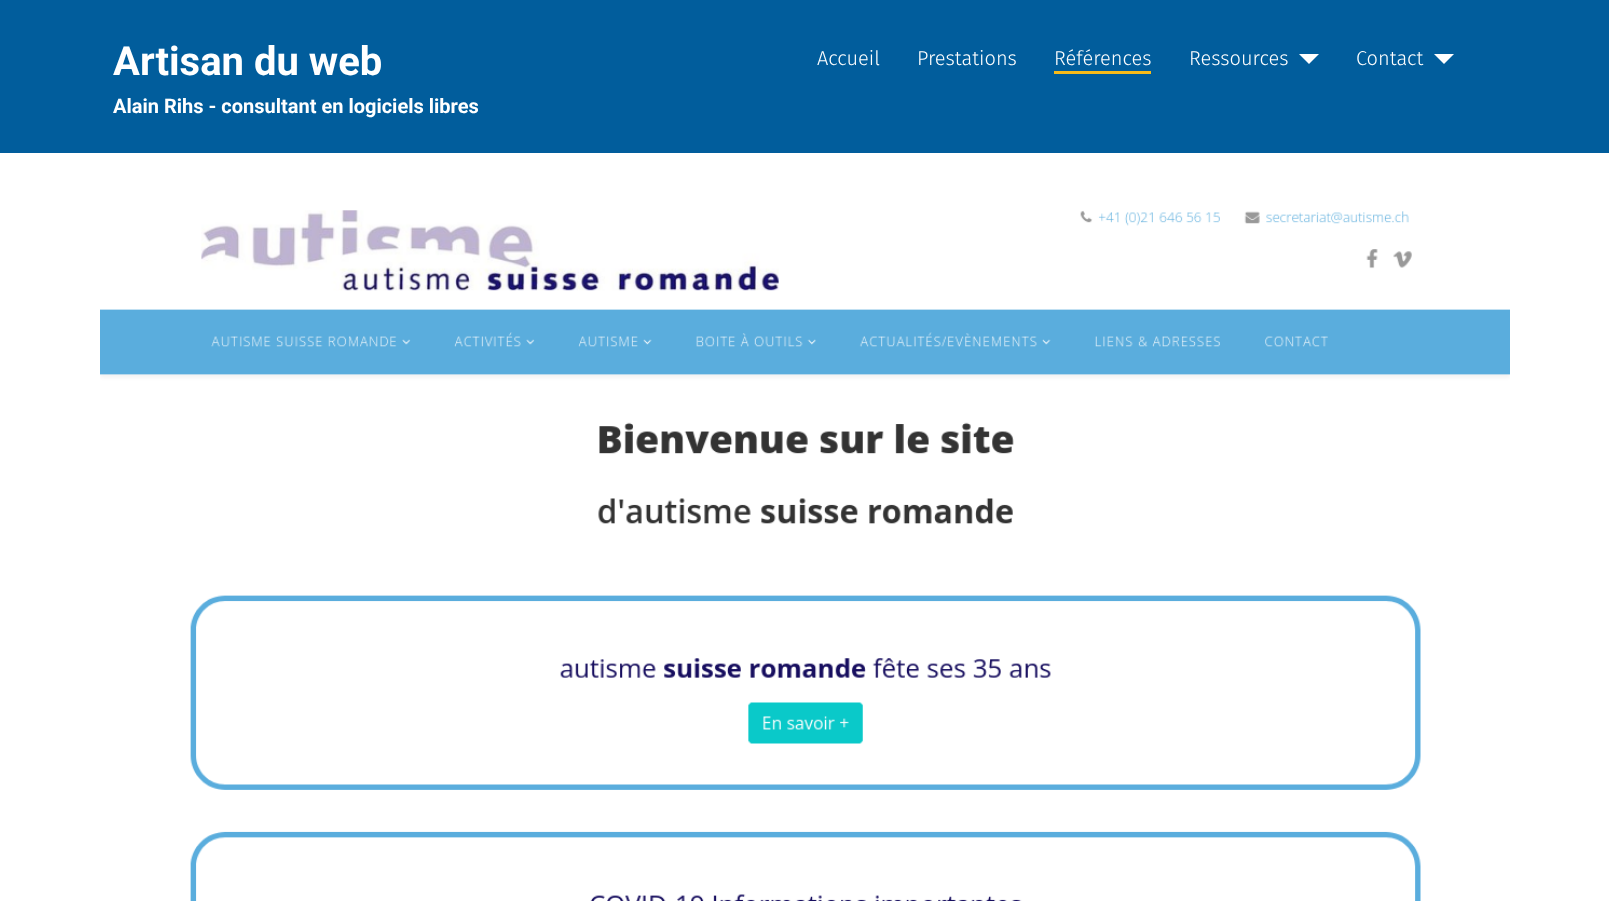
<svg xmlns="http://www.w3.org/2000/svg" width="1609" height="901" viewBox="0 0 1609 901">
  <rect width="100%" height="100%" fill="#ffffff"/>
  <rect x="0" y="0" width="1609" height="153" fill="#015d9c"/>
  <text x="113" y="75" font-family="Roboto" font-size="40" font-weight="bold" fill="#ffffff">Artisan du web</text>
  <text x="113" y="113" font-family="Roboto" font-size="20" font-weight="bold" fill="#ffffff">Alain Rihs - consultant en logiciels libres</text>
  <text x="817" y="65" font-family="Fira Sans" font-size="20" font-weight="300" fill="#ffffff">Accueil</text>
  <text x="917" y="65" font-family="Fira Sans" font-size="20" font-weight="300" fill="#ffffff">Prestations</text>
  <text x="1054" y="65" font-family="Fira Sans" font-size="20" font-weight="300" fill="#ffffff">Références</text>
  <rect x="1054" y="71" width="97" height="3" fill="#f8bb19"/>
  <text x="1189" y="65" font-family="Fira Sans" font-size="20" font-weight="300" fill="#ffffff">Ressources</text>
  <path d="M1299 54H1319L1309 64Z" fill="#ffffff"/>
  <text x="1356" y="65" font-family="Fira Sans" font-size="20" font-weight="300" fill="#ffffff">Contact</text>
  <path d="M1434 54H1454L1444 64Z" fill="#ffffff"/>
  <image x="100" y="210" width="1410" height="691" href="img1.png"/>
</svg>
